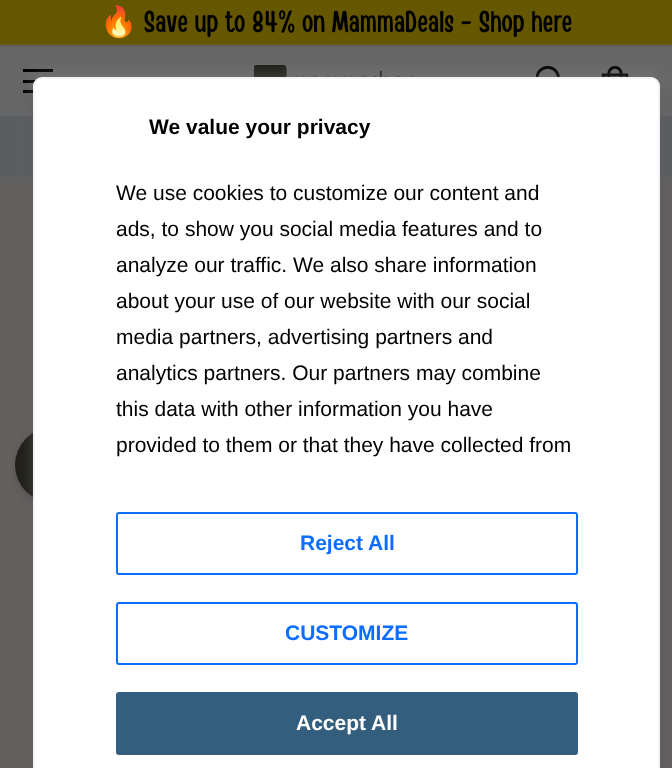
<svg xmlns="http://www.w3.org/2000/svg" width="672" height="768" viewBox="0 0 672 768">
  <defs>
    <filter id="blur1" x="-50%" y="-200%" width="200%" height="500%"><feGaussianBlur stdDeviation="7.5"/></filter>
  </defs>
  <rect width="100%" height="100%" fill="#666666"/>
  <rect x="0" y="0" width="672" height="45" fill="#655600"/>
  <rect x="0" y="45" width="672" height="2" fill="#5f5f5f"/>
  <text x="100" y="32" font-family="Noto Color Emoji" font-size="30" fill="#000000">🔥</text>
  <text x="144" y="32" font-family="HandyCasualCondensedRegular" font-size="30" fill="#000000">Save up to 84% on MammaDeals - Shop here</text>
  <rect x="23" y="80" width="13" height="3" fill="#000000"/>
  <rect x="23" y="69" width="30" height="3" fill="#000000"/>
  <rect x="23" y="90" width="10" height="3" fill="#000000"/>
  <image x="254" y="65" width="161" height="12" href="img1.png"/>
  <image x="536" y="66" width="24" height="11" href="img2.png"/>
  <image x="601" y="66" width="28" height="11" href="img3.png"/>
  <rect x="0" y="116" width="672" height="61" fill="#5b5e61"/>
  <rect x="0" y="177" width="672" height="591" fill="#62605f"/>
  <image x="12" y="432" width="21" height="71" href="img4.png"/>
  <rect x="33" y="84" width="627" height="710" rx="9" fill="#000000" fill-opacity="0.3" filter="url(#blur1)"/>
  <rect x="33" y="75" width="627" height="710" rx="9" fill="#acabab" fill-opacity="0.3" filter="url(#blur1)"/>
  <rect x="34" y="78" width="625" height="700" rx="8" fill="#ffffff" stroke="#f4f4f4" stroke-width="2"/>
  <text x="149" y="134" font-family="Liberation Sans" font-size="21" font-weight="bold" fill="#000000">We value your privacy</text>
  <text x="116" y="200" font-family="Liberation Sans" font-size="21" fill="#000000">We use cookies to customize our content and</text>
  <text x="116" y="236" font-family="Liberation Sans" font-size="21" fill="#000000">ads, to show you social media features and to</text>
  <text x="116" y="272" font-family="Liberation Sans" font-size="21" fill="#000000">analyze our traffic. We also share information</text>
  <text x="116" y="308" font-family="Liberation Sans" font-size="21" fill="#000000">about your use of our website with our social</text>
  <text x="116" y="344" font-family="Liberation Sans" font-size="21" fill="#000000">media partners, advertising partners and</text>
  <text x="116" y="380" font-family="Liberation Sans" font-size="21" fill="#000000">analytics partners. Our partners may combine</text>
  <text x="116" y="416" font-family="Liberation Sans" font-size="21" fill="#000000">this data with other information you have</text>
  <text x="116" y="452" font-family="Liberation Sans" font-size="21" fill="#000000">provided to them or that they have collected from</text>
  <rect x="117" y="513" width="460" height="61" rx="2" fill="none" stroke="#0d6efd" stroke-width="2"/>
  <text x="300" y="550" font-family="Liberation Sans" font-size="21" font-weight="bold" fill="#0d6efd">Reject All</text>
  <rect x="117" y="603" width="460" height="61" rx="2" fill="none" stroke="#0d6efd" stroke-width="2"/>
  <text x="285" y="640" font-family="Liberation Sans" font-size="21" font-weight="bold" fill="#0d6efd">CUSTOMIZE</text>
  <rect x="117" y="693" width="460" height="61" rx="2" fill="#345e7d" stroke="#345e7d" stroke-width="2"/>
  <text x="296" y="730" font-family="Liberation Sans" font-size="21" font-weight="bold" fill="#ffffff">Accept All</text>
</svg>
